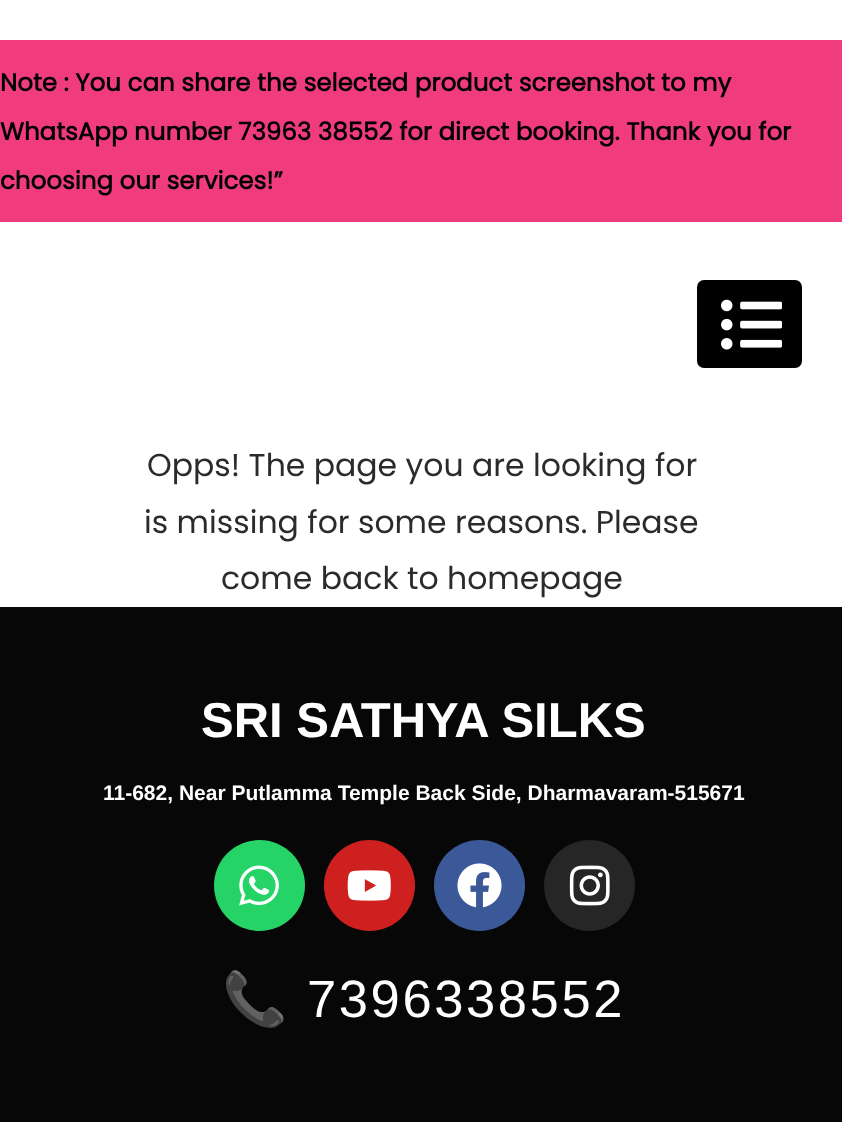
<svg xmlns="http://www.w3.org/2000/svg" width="842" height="1122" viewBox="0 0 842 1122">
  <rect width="100%" height="100%" fill="#ffffff"/>
  <rect x="0" y="40" width="842" height="182" fill="#f03c7d"/>
  <text x="0" y="91" font-family="Poppins" font-size="24.5" font-weight="bold" fill="#000000">Note : You can share the selected product screenshot to my</text>
  <text x="0" y="140" font-family="Poppins" font-size="24.5" font-weight="bold" fill="#000000">WhatsApp number 73963 38552 for direct booking. Thank you for</text>
  <text x="0" y="189" font-family="Poppins" font-size="24.5" font-weight="bold" fill="#000000">choosing our services!”</text>
  <rect x="697" y="280" width="105" height="88" rx="7" fill="#000000"/>
  <image x="721" y="299" width="61" height="51" href="img1.png"/>
  <text x="147" y="476" font-family="Poppins" font-size="31.5" fill="#2b2b2b">Opps! The page you are looking for</text>
  <text x="144" y="533" font-family="Poppins" font-size="31.5" fill="#2b2b2b">is missing for some reasons. Please</text>
  <text x="221" y="589" font-family="Poppins" font-size="31.5" fill="#2b2b2b">come back to homepage</text>
  <rect x="0" y="607" width="842" height="515" fill="#070707"/>
  <text x="201" y="737" font-family="Liberation Sans" font-size="49" font-weight="bold" fill="#ffffff">SRI SATHYA SILKS</text>
  <text x="103" y="800" font-family="Liberation Sans" font-size="21" font-weight="bold" fill="#ffffff">11-682, Near Putlamma Temple Back Side, Dharmavaram-515671</text>
  <circle cx="259.5" cy="885.5" r="45.5" fill="#25d366"/>
  <image x="239" y="865" width="40" height="41" href="img2.png"/>
  <circle cx="369.5" cy="885.5" r="45.5" fill="#cd201f"/>
  <image x="347" y="870" width="44" height="31" href="img3.png"/>
  <circle cx="479.5" cy="885.5" r="45.5" fill="#3b5998"/>
  <image x="457" y="863" width="45" height="45" href="img4.png"/>
  <circle cx="589.5" cy="885.5" r="45.5" fill="#262626"/>
  <image x="569" y="865" width="41" height="41" href="img5.png"/>
  <text x="222" y="1017" font-family="Noto Color Emoji" font-size="52.5" font-weight="bold" letter-spacing="2.6" fill="#ffffff">📞</text>
  <text x="307" y="1017" font-family="Liberation Sans" font-size="52.5" letter-spacing="2.6" fill="#ffffff">7396338552</text>
</svg>
